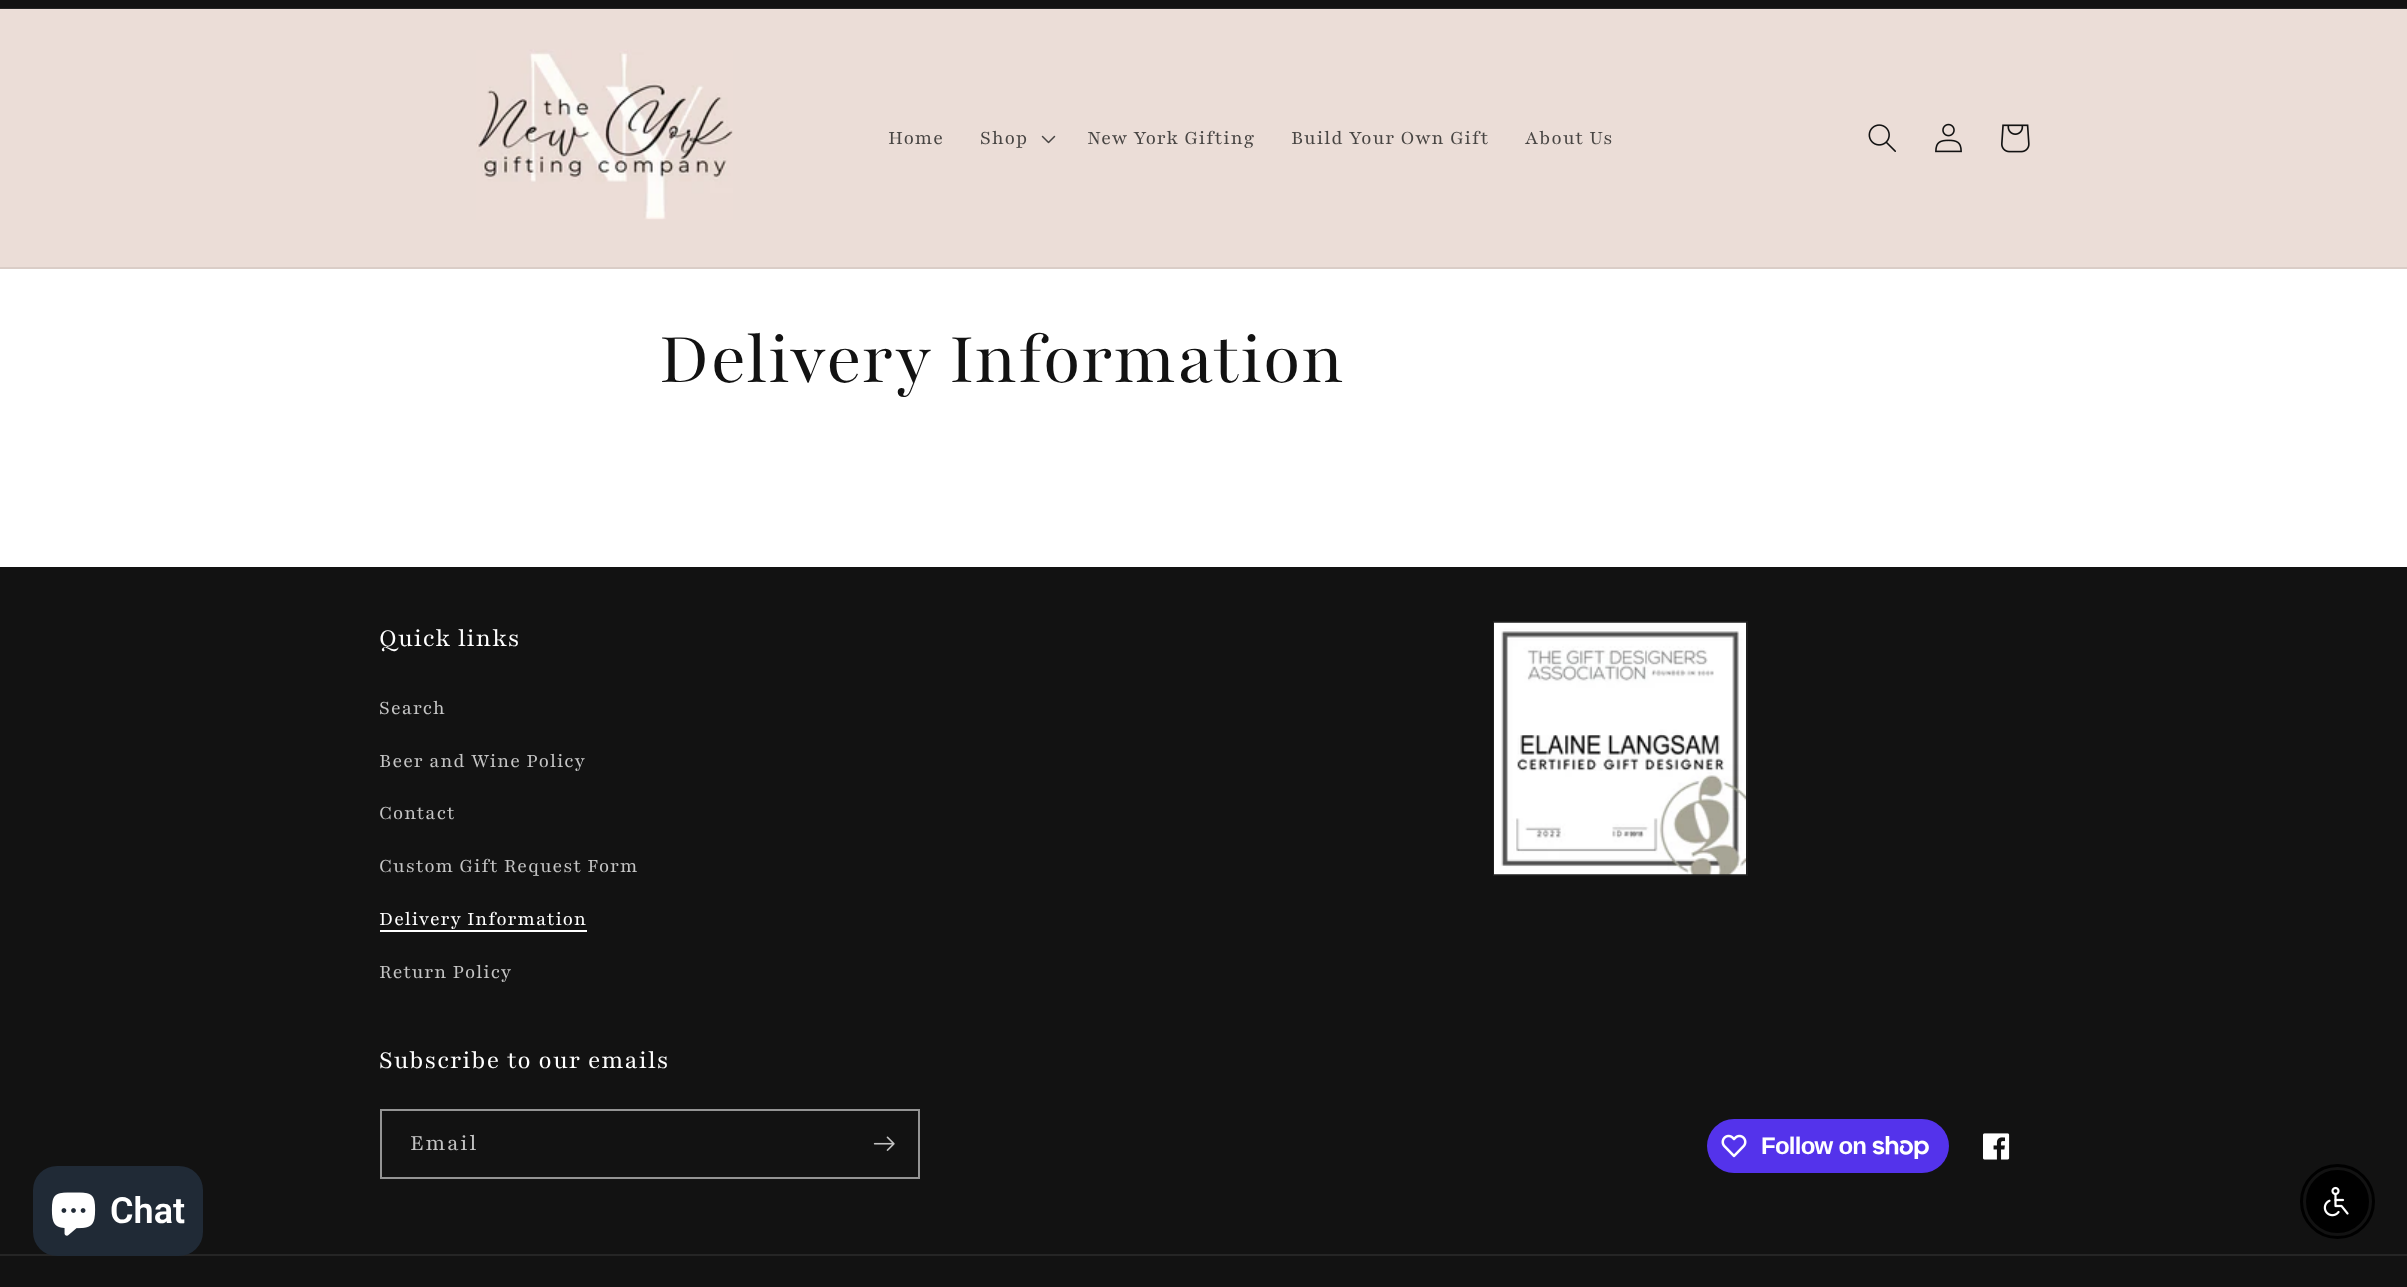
<svg xmlns="http://www.w3.org/2000/svg" width="2407" height="1287" viewBox="0 0 2407 1287">
  <rect width="100%" height="100%" fill="#ffffff"/>
  <rect x="0" y="0" width="2407" height="8" fill="#121212"/>
  <rect x="0" y="8" width="2407" height="1" fill="#252525"/>
  <rect x="0" y="10" width="2407" height="257" fill="#ebddd7"/>
  <rect x="0" y="9" width="2407" height="1" fill="#ede0da"/>
  <rect x="0" y="267" width="2407" height="2" fill="#dacdc7"/>
  <image x="476" y="49" width="257" height="171" href="img1.png"/>
  <text x="888" y="144" font-family="'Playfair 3'" font-size="21" letter-spacing="0.9" fill="#484543">Home</text>
  <text x="980" y="144" font-family="'Playfair 3'" font-size="21" letter-spacing="0.9" fill="#484543">Shop</text>
  <image x="1041" y="135" width="15" height="9" href="img2.png"/>
  <text x="1087" y="144" font-family="'Playfair 3'" font-size="21" letter-spacing="0.9" fill="#484543">New York Gifting</text>
  <text x="1291" y="144" font-family="'Playfair 3'" font-size="21" letter-spacing="0.9" fill="#484543">Build Your Own Gift</text>
  <text x="1525" y="144" font-family="'Playfair 3'" font-size="21" letter-spacing="0.9" fill="#484543">About Us</text>
  <image x="1868" y="124" width="28" height="28" href="img3.png"/>
  <image x="1935" y="123" width="27" height="30" href="img4.png"/>
  <image x="2001" y="124" width="29" height="29" href="img5.png"/>
  <text x="659" y="382" font-family="Playfair" font-size="78" letter-spacing="0.9" fill="#121212">Delivery Information</text>
  <rect x="0" y="567" width="2407" height="720" fill="#121212"/>
  <text x="379" y="646" font-family="'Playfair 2'" font-size="27" letter-spacing="0.9" fill="#ffffff">Quick links</text>
  <text x="379" y="714" font-family="'Playfair 3'" font-size="21" letter-spacing="0.9" fill="#c4c4c4">Search</text>
  <text x="379" y="767" font-family="'Playfair 3'" font-size="21" letter-spacing="0.9" fill="#c4c4c4">Beer and Wine Policy</text>
  <text x="379" y="819" font-family="'Playfair 3'" font-size="21" letter-spacing="0.9" fill="#c4c4c4">Contact</text>
  <text x="379" y="872" font-family="'Playfair 3'" font-size="21" letter-spacing="0.9" fill="#c4c4c4">Custom Gift Request Form</text>
  <text x="379" y="925" font-family="'Playfair 3'" font-size="21" letter-spacing="0.9" fill="#ffffff">Delivery Information</text>
  <rect x="380" y="930" width="207" height="2" fill="#ffffff"/>
  <text x="379" y="978" font-family="'Playfair 3'" font-size="21" letter-spacing="0.9" fill="#c4c4c4">Return Policy</text>
  <rect x="1494" y="622" width="253" height="253" fill="none" stroke="#1e1e1e" stroke-width="2"/>
  <image x="1494" y="622" width="252" height="253" href="img6.png"/>
  <text x="379" y="1068" font-family="'Playfair 2'" font-size="27" letter-spacing="0.9" fill="#ffffff">Subscribe to our emails</text>
  <rect x="381" y="1110" width="538" height="68" fill="none" stroke="#949494" stroke-width="2"/>
  <text x="410" y="1150" font-family="'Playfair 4'" font-size="24" letter-spacing="1.5" fill="#c4c4c4">Email</text>
  <image x="873" y="1136" width="22" height="15" href="img7.png"/>
  <rect x="1707" y="1119" width="242" height="54" rx="27" fill="#5433eb"/>
  <image x="1721" y="1134" width="26" height="24" href="img8.png"/>
  <text x="1761" y="1154" font-family="Liberation Sans" font-size="24" font-weight="bold" letter-spacing="-0.75" fill="#ffffff">Follow on</text>
  <image x="1872" y="1136" width="57" height="23" href="img9.png"/>
  <image x="1983" y="1133" width="27" height="27" href="img10.png"/>
  <rect x="0" y="1254" width="2407" height="2" fill="#252525"/>
  <rect x="33" y="1166" width="170" height="90" rx="24" fill="#202a36"/>
  <image x="51" y="1192" width="45" height="44" href="img11.png"/>
  <text x="110" y="1223" font-family="Roboto" font-size="36" font-weight="600" fill="#ffffff">Chat</text>
  <circle cx="2337.5" cy="1201.5" r="36" fill="none" stroke="#000000" stroke-width="3"/>
  <circle cx="2337.5" cy="1201.5" r="30.5" fill="#000000" stroke="#000000" stroke-width="2"/>
  <image x="2323" y="1186" width="26" height="31" href="img12.png"/>
</svg>
